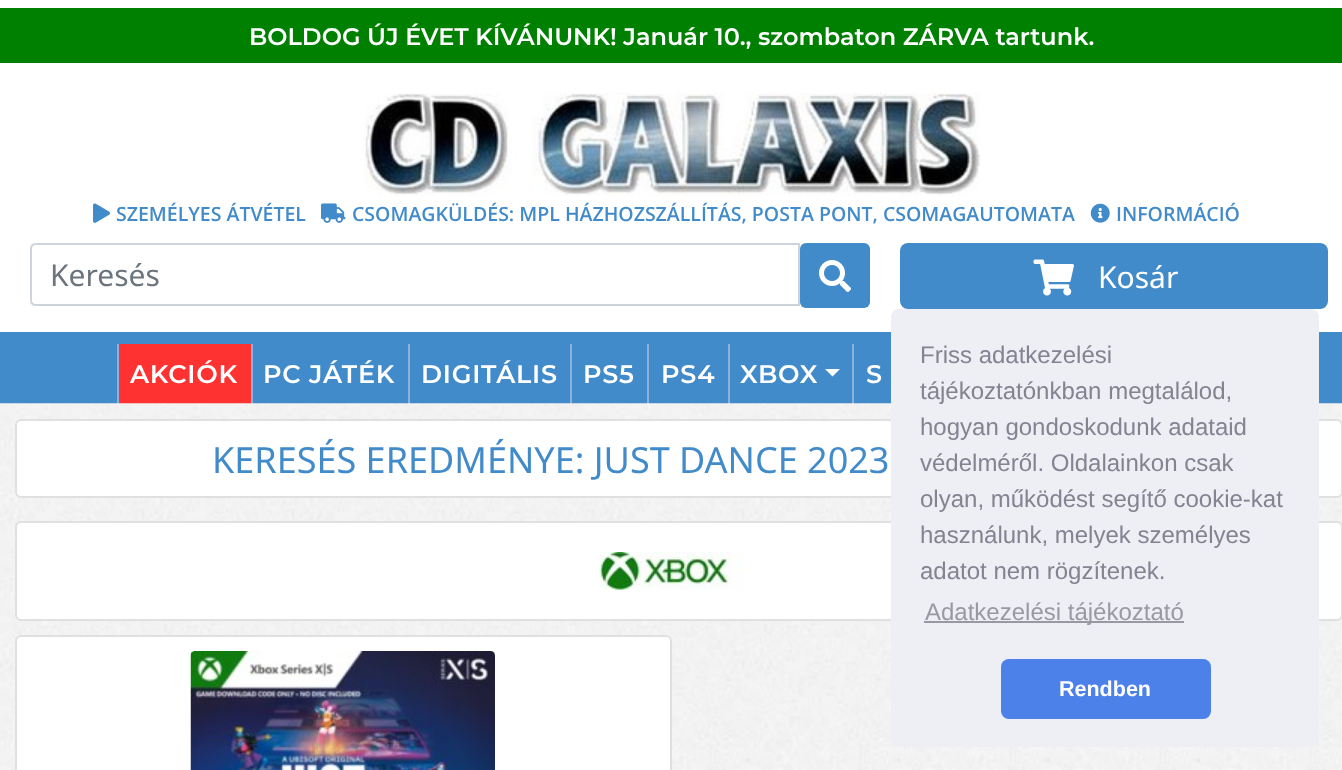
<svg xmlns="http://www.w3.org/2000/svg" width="1342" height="770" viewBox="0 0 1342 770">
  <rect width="100%" height="100%" fill="#ffffff"/>
  <rect x="0" y="8" width="1342" height="55" fill="#008000"/>
  <text x="249" y="45" font-family="Montserrat" font-size="24" font-weight="600" fill="#ffffff">BOLDOG ÚJ ÉVET KÍVÁNUNK! Január 10., szombaton ZÁRVA tartunk.</text>
  <image x="364" y="93" width="616" height="103" href="img1.png"/>
  <image x="93" y="203" width="17" height="20" href="img2.png"/>
  <text x="116" y="221" font-family="Open Sans" font-size="19.5" font-weight="600" fill="#428bca">SZEMÉLYES ÁTVÉTEL</text>
  <image x="321" y="203" width="25" height="20" href="img3.png"/>
  <text x="352" y="221" font-family="Open Sans" font-size="19.5" font-weight="600" fill="#428bca">CSOMAGKÜLDÉS: MPL HÁZHOZSZÁLLÍTÁS, POSTA PONT, CSOMAGAUTOMATA</text>
  <image x="1090" y="203" width="20" height="20" href="img4.png"/>
  <text x="1116" y="221" font-family="Open Sans" font-size="19.5" font-weight="600" fill="#428bca">INFORMÁCIÓ</text>
  <path d="M36 244H799V305H36C33 305 31 303 31 300V249C31 246 33 244 36 244Z" fill="none" stroke="#ced4da" stroke-width="2"/>
  <text x="50" y="286" font-family="Noto Sans" font-size="30" fill="#6c757d">Keresés</text>
  <rect x="800" y="243" width="70" height="65" rx="6" fill="#428bca"/>
  <image x="819" y="260" width="32" height="32" href="img5.png"/>
  <rect x="900" y="243" width="428" height="66" rx="8" fill="#428bca"/>
  <image x="1033" y="259" width="41" height="37" href="img6.png"/>
  <text x="1098" y="288" font-family="Noto Sans" font-size="30" fill="#ffffff">Kosár</text>
  <rect x="0" y="332" width="1342" height="72" fill="#428bca"/>
  <rect x="119" y="344" width="132" height="60" fill="#ff3232"/>
  <rect x="251" y="344" width="2" height="60" fill="#8db2d9"/>
  <rect x="117" y="344" width="2" height="60" fill="#8db2d9"/>
  <text x="130" y="383" font-family="Montserrat" font-size="25.5" font-weight="600" letter-spacing="0.75" fill="#ffffff">AKCIÓK</text>
  <rect x="408" y="344" width="2" height="60" fill="#8db2d9"/>
  <text x="263" y="383" font-family="Montserrat" font-size="25.5" font-weight="600" letter-spacing="0.75" fill="#ffffff">PC JÁTÉK</text>
  <rect x="570" y="344" width="2" height="60" fill="#8db2d9"/>
  <text x="421" y="383" font-family="Montserrat" font-size="25.5" font-weight="600" letter-spacing="0.75" fill="#ffffff">DIGITÁLIS</text>
  <rect x="647" y="344" width="2" height="60" fill="#8db2d9"/>
  <text x="583" y="383" font-family="Montserrat" font-size="25.5" font-weight="600" letter-spacing="0.75" fill="#ffffff">PS5</text>
  <rect x="728" y="344" width="2" height="60" fill="#8db2d9"/>
  <text x="661" y="383" font-family="Montserrat" font-size="25.5" font-weight="600" letter-spacing="0.75" fill="#ffffff">PS4</text>
  <rect x="852" y="344" width="2" height="60" fill="#8db2d9"/>
  <text x="740" y="383" font-family="Montserrat" font-size="25.5" font-weight="600" letter-spacing="0.75" fill="#ffffff">XBOX</text>
  <path d="M825 369H840L832.5 376.5Z" fill="#ffffff"/>
  <text x="866" y="383" font-family="Montserrat" font-size="25.5" font-weight="600" letter-spacing="0.75" fill="#ffffff">S</text>
  <image x="0" y="403" width="1342" height="1" href="img7.png"/>
  <image x="0" y="403" width="1342" height="367" href="img8.png"/>
  <rect x="15" y="419" width="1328" height="79" rx="6" fill="#ffffff"/>
  <rect x="16" y="420" width="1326" height="77" rx="5" fill="none" stroke="#000000" stroke-opacity="0.12" stroke-width="2"/>
  <text x="212" y="473" font-family="Noto Sans" font-size="36" fill="#428bca">KERESÉS EREDMÉNYE: JUST DANCE 2023</text>
  <rect x="15" y="521" width="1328" height="100" rx="6" fill="#ffffff"/>
  <rect x="16" y="522" width="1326" height="98" rx="5" fill="none" stroke="#000000" stroke-opacity="0.12" stroke-width="2"/>
  <image x="600" y="552" width="144" height="38" href="img9.png"/>
  <rect x="15" y="635" width="657" height="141" rx="6" fill="#ffffff"/>
  <rect x="16" y="636" width="655" height="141" rx="5" fill="none" stroke="#000000" stroke-opacity="0.12" stroke-width="2"/>
  <image x="190" y="651" width="305" height="119" href="img10.png"/>
  <rect x="891" y="309" width="428" height="438" rx="8" fill="#edeff5"/>
  <text x="920" y="363" font-family="Liberation Sans" font-size="24" fill="#838391">Friss adatkezelési</text>
  <text x="920" y="399" font-family="Liberation Sans" font-size="24" fill="#838391">tájékoztatónkban megtalálod,</text>
  <text x="920" y="435" font-family="Liberation Sans" font-size="24" fill="#838391">hogyan gondoskodunk adataid</text>
  <text x="920" y="471" font-family="Liberation Sans" font-size="24" fill="#838391">védelméről. Oldalainkon csak</text>
  <text x="920" y="507" font-family="Liberation Sans" font-size="24" fill="#838391">olyan, működést segítő cookie-kat</text>
  <text x="920" y="543" font-family="Liberation Sans" font-size="24" fill="#838391">használunk, melyek személyes</text>
  <text x="920" y="579" font-family="Liberation Sans" font-size="24" fill="#838391">adatot nem rögzítenek.</text>
  <rect x="924" y="621" width="260" height="2" fill="#9899a5"/>
  <text x="925" y="620" font-family="Liberation Sans" font-size="24" fill="#9899a5">Adatkezelési tájékoztató</text>
  <rect x="1001" y="659" width="210" height="60" rx="8" fill="#4b81e8"/>
  <text x="1059" y="696" font-family="Liberation Sans" font-size="21.5" font-weight="bold" fill="#ffffff">Rendben</text>
</svg>
